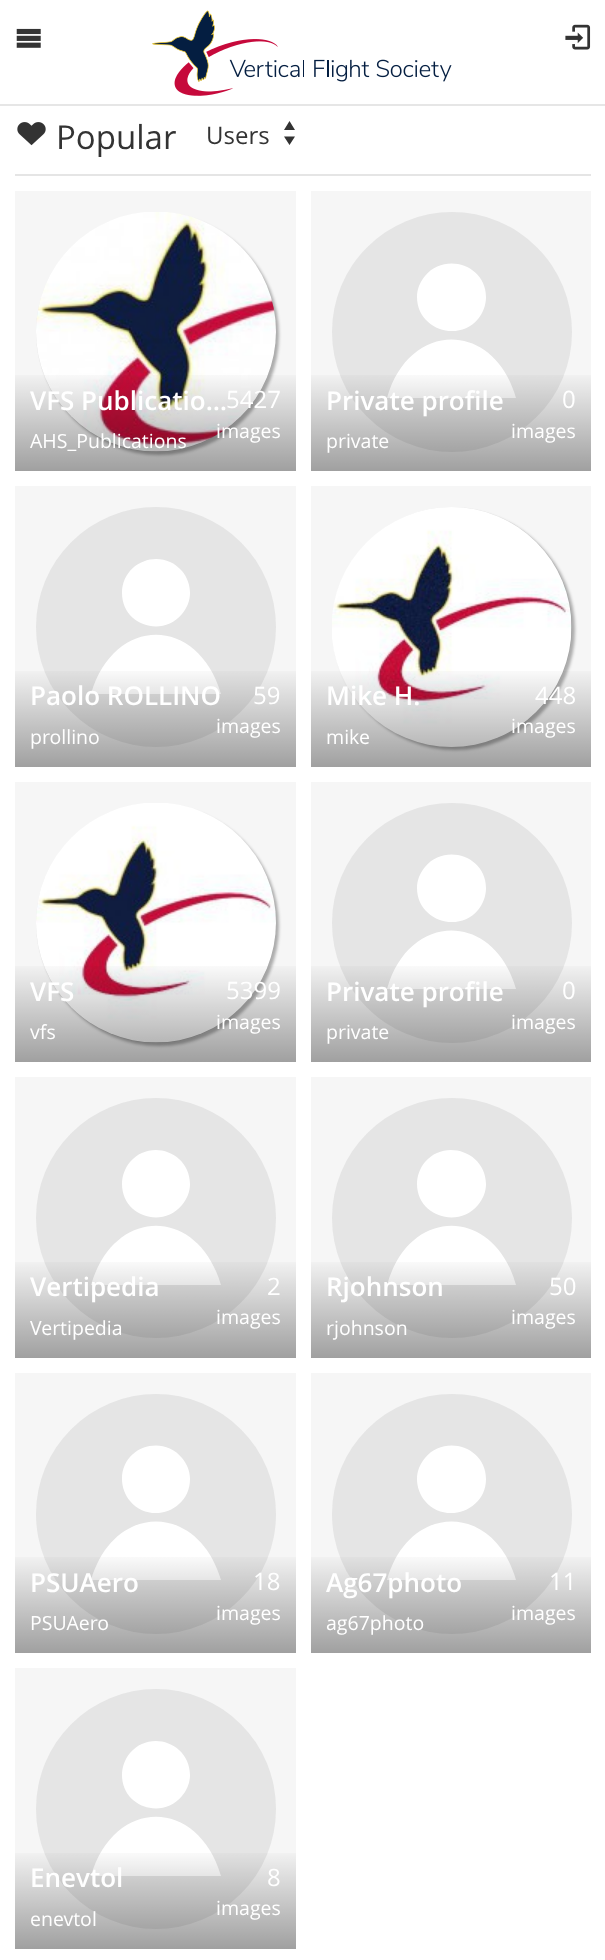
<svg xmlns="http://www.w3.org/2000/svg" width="605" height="1960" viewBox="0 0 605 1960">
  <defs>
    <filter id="blur1" x="-50%" y="-200%" width="200%" height="500%"><feGaussianBlur stdDeviation="1.5"/></filter>
    <linearGradient id="g1" gradientUnits="userSpaceOnUse" x1="155" y1="369" x2="155" y2="471"><stop offset="0" stop-color="#000000" stop-opacity="0"/><stop offset="1" stop-color="#000000" stop-opacity="0.35"/></linearGradient>
    <linearGradient id="g2" gradientUnits="userSpaceOnUse" x1="451" y1="369" x2="451" y2="471"><stop offset="0" stop-color="#000000" stop-opacity="0"/><stop offset="1" stop-color="#000000" stop-opacity="0.35"/></linearGradient>
    <linearGradient id="g3" gradientUnits="userSpaceOnUse" x1="155" y1="665" x2="155" y2="767"><stop offset="0" stop-color="#000000" stop-opacity="0"/><stop offset="1" stop-color="#000000" stop-opacity="0.35"/></linearGradient>
    <linearGradient id="g4" gradientUnits="userSpaceOnUse" x1="451" y1="665" x2="451" y2="767"><stop offset="0" stop-color="#000000" stop-opacity="0"/><stop offset="1" stop-color="#000000" stop-opacity="0.35"/></linearGradient>
    <linearGradient id="g5" gradientUnits="userSpaceOnUse" x1="155" y1="960" x2="155" y2="1062"><stop offset="0" stop-color="#000000" stop-opacity="0"/><stop offset="1" stop-color="#000000" stop-opacity="0.35"/></linearGradient>
    <linearGradient id="g6" gradientUnits="userSpaceOnUse" x1="451" y1="960" x2="451" y2="1062"><stop offset="0" stop-color="#000000" stop-opacity="0"/><stop offset="1" stop-color="#000000" stop-opacity="0.35"/></linearGradient>
    <linearGradient id="g7" gradientUnits="userSpaceOnUse" x1="155" y1="1256" x2="155" y2="1358"><stop offset="0" stop-color="#000000" stop-opacity="0"/><stop offset="1" stop-color="#000000" stop-opacity="0.35"/></linearGradient>
    <linearGradient id="g8" gradientUnits="userSpaceOnUse" x1="451" y1="1256" x2="451" y2="1358"><stop offset="0" stop-color="#000000" stop-opacity="0"/><stop offset="1" stop-color="#000000" stop-opacity="0.35"/></linearGradient>
    <linearGradient id="g9" gradientUnits="userSpaceOnUse" x1="155" y1="1551" x2="155" y2="1653"><stop offset="0" stop-color="#000000" stop-opacity="0"/><stop offset="1" stop-color="#000000" stop-opacity="0.35"/></linearGradient>
    <linearGradient id="g10" gradientUnits="userSpaceOnUse" x1="451" y1="1551" x2="451" y2="1653"><stop offset="0" stop-color="#000000" stop-opacity="0"/><stop offset="1" stop-color="#000000" stop-opacity="0.35"/></linearGradient>
    <linearGradient id="g11" gradientUnits="userSpaceOnUse" x1="155" y1="1847" x2="155" y2="1949"><stop offset="0" stop-color="#000000" stop-opacity="0"/><stop offset="1" stop-color="#000000" stop-opacity="0.35"/></linearGradient>
  </defs>
  <rect width="100%" height="100%" fill="#ffffff"/>
  <rect x="0" y="104" width="605" height="2" fill="#e6e6e6"/>
  <image x="16" y="28" width="25" height="20" href="img1.png"/>
  <image x="152" y="10" width="300" height="86" href="img2.png"/>
  <image x="565" y="24" width="26" height="26" href="img3.png"/>
  <rect x="15" y="174" width="576" height="2" fill="#e5e5e5"/>
  <image x="17" y="122" width="29" height="24" href="img4.png"/>
  <text x="56" y="149" font-family="Open Sans" font-size="33" fill="#333333">Popular</text>
  <text x="206" y="144" font-family="Open Sans" font-size="24" fill="#333333">Users</text>
  <path d="M289.5 121L284 130H295ZM289.5 145L295 136.5H284Z" fill="#333333"/>
  <rect x="15" y="191" width="281" height="280" fill="#f6f6f6"/>
  <circle cx="156" cy="332" r="120" fill="#e5e5e5"/>
  <rect x="39" y="215" width="240" height="240" rx="120" fill="#000000" fill-opacity="0.3" filter="url(#blur1)"/>
  <image x="36" y="212" width="240" height="240" href="img5.png"/>
  <rect x="15" y="375" width="281" height="96" fill="url(#g1)"/>
  <text x="30" y="410" font-family="Open Sans" font-size="26" font-weight="600" fill="#ffffff">VFS Publicatio…</text>
  <text x="30" y="448" font-family="Open Sans" font-size="19.5" fill="#ffffff">AHS_Publications</text>
  <text x="226" y="408" font-family="Open Sans" font-size="24" fill="#ffffff">5427</text>
  <text x="216" y="438" font-family="Open Sans" font-size="19.5" fill="#ffffff">images</text>
  <rect x="311" y="191" width="280" height="280" fill="#f6f6f6"/>
  <circle cx="452" cy="332" r="120" fill="#e5e5e5"/>
  <path d="M417 297C417 329 458 343 478 319C483 313 486 305 486 297C486 265 445 252 425 276C420 282 417 289 417 297ZM516 398C494 320 409 320 387 398Z" fill="#ffffff"/>
  <rect x="311" y="375" width="280" height="96" fill="url(#g2)"/>
  <text x="326" y="410" font-family="Open Sans" font-size="26" font-weight="600" fill="#ffffff">Private profile</text>
  <text x="326" y="448" font-family="Open Sans" font-size="19.5" fill="#ffffff">private</text>
  <text x="562" y="408" font-family="Open Sans" font-size="24" fill="#ffffff">0</text>
  <text x="511" y="438" font-family="Open Sans" font-size="19.5" fill="#ffffff">images</text>
  <rect x="15" y="486" width="281" height="281" fill="#f6f6f6"/>
  <circle cx="156" cy="627" r="120" fill="#e5e5e5"/>
  <path d="M122 593C122 625 162 638 182 614C187 608 190 601 190 593C190 585 187 577 182 571C162 547 122 561 122 593ZM221 694C198 615 114 615 91 694Z" fill="#ffffff"/>
  <rect x="15" y="671" width="281" height="96" fill="url(#g3)"/>
  <text x="30" y="705" font-family="Open Sans" font-size="26" font-weight="600" fill="#ffffff">Paolo ROLLINO</text>
  <text x="30" y="744" font-family="Open Sans" font-size="19.5" fill="#ffffff">prollino</text>
  <text x="253" y="704" font-family="Open Sans" font-size="24" fill="#ffffff">59</text>
  <text x="216" y="733" font-family="Open Sans" font-size="19.5" fill="#ffffff">images</text>
  <rect x="311" y="486" width="280" height="281" fill="#f6f6f6"/>
  <circle cx="452" cy="627" r="120" fill="#e5e5e5"/>
  <rect x="335" y="510" width="240" height="240" rx="120" fill="#000000" fill-opacity="0.3" filter="url(#blur1)"/>
  <image x="332" y="507" width="240" height="240" href="img6.png"/>
  <rect x="311" y="671" width="280" height="96" fill="url(#g4)"/>
  <text x="326" y="705" font-family="Open Sans" font-size="26" font-weight="600" fill="#ffffff">Mike H.</text>
  <text x="326" y="744" font-family="Open Sans" font-size="19.5" fill="#ffffff">mike</text>
  <text x="535" y="704" font-family="Open Sans" font-size="24" fill="#ffffff">448</text>
  <text x="511" y="733" font-family="Open Sans" font-size="19.5" fill="#ffffff">images</text>
  <rect x="15" y="782" width="281" height="280" fill="#f6f6f6"/>
  <circle cx="156" cy="923" r="120" fill="#e5e5e5"/>
  <rect x="39" y="806" width="240" height="240" rx="120" fill="#000000" fill-opacity="0.3" filter="url(#blur1)"/>
  <image x="36" y="803" width="240" height="240" href="img7.png"/>
  <rect x="15" y="966" width="281" height="96" fill="url(#g5)"/>
  <text x="30" y="1001" font-family="Open Sans" font-size="26" font-weight="600" fill="#ffffff">VFS</text>
  <text x="30" y="1039" font-family="Open Sans" font-size="19.5" fill="#ffffff">vfs</text>
  <text x="226" y="999" font-family="Open Sans" font-size="24" fill="#ffffff">5399</text>
  <text x="216" y="1029" font-family="Open Sans" font-size="19.5" fill="#ffffff">images</text>
  <rect x="311" y="782" width="280" height="280" fill="#f6f6f6"/>
  <circle cx="452" cy="923" r="120" fill="#e5e5e5"/>
  <path d="M417 888C417 920 458 934 478 910C483 904 486 896 486 888C486 856 445 843 425 867C420 873 417 880 417 888ZM516 989C494 911 409 911 387 989Z" fill="#ffffff"/>
  <rect x="311" y="966" width="280" height="96" fill="url(#g6)"/>
  <text x="326" y="1001" font-family="Open Sans" font-size="26" font-weight="600" fill="#ffffff">Private profile</text>
  <text x="326" y="1039" font-family="Open Sans" font-size="19.5" fill="#ffffff">private</text>
  <text x="562" y="999" font-family="Open Sans" font-size="24" fill="#ffffff">0</text>
  <text x="511" y="1029" font-family="Open Sans" font-size="19.5" fill="#ffffff">images</text>
  <rect x="15" y="1077" width="281" height="281" fill="#f6f6f6"/>
  <circle cx="156" cy="1218" r="120" fill="#e5e5e5"/>
  <path d="M122 1184C122 1216 162 1229 182 1205C187 1199 190 1192 190 1184C190 1152 150 1138 130 1162C125 1168 122 1176 122 1184ZM221 1285C198 1206 114 1206 91 1285Z" fill="#ffffff"/>
  <rect x="15" y="1262" width="281" height="96" fill="url(#g7)"/>
  <text x="30" y="1296" font-family="Open Sans" font-size="26" font-weight="600" fill="#ffffff">Vertipedia</text>
  <text x="30" y="1335" font-family="Open Sans" font-size="19.5" fill="#ffffff">Vertipedia</text>
  <text x="267" y="1295" font-family="Open Sans" font-size="24" fill="#ffffff">2</text>
  <text x="216" y="1324" font-family="Open Sans" font-size="19.5" fill="#ffffff">images</text>
  <rect x="311" y="1077" width="280" height="281" fill="#f6f6f6"/>
  <circle cx="452" cy="1218" r="120" fill="#e5e5e5"/>
  <path d="M417 1184C417 1216 458 1229 478 1205C483 1199 486 1192 486 1184C486 1152 445 1138 425 1162C420 1168 417 1176 417 1184ZM516 1285C494 1206 409 1206 387 1285Z" fill="#ffffff"/>
  <rect x="311" y="1262" width="280" height="96" fill="url(#g8)"/>
  <text x="326" y="1296" font-family="Open Sans" font-size="26" font-weight="600" fill="#ffffff">Rjohnson</text>
  <text x="326" y="1335" font-family="Open Sans" font-size="19.5" fill="#ffffff">rjohnson</text>
  <text x="549" y="1295" font-family="Open Sans" font-size="24" fill="#ffffff">50</text>
  <text x="511" y="1324" font-family="Open Sans" font-size="19.5" fill="#ffffff">images</text>
  <rect x="15" y="1373" width="281" height="280" fill="#f6f6f6"/>
  <circle cx="156" cy="1514" r="120" fill="#e5e5e5"/>
  <path d="M122 1479C122 1487 125 1495 130 1501C150 1525 190 1511 190 1479C190 1471 187 1464 182 1458C162 1434 122 1447 122 1479ZM221 1580C198 1502 114 1502 91 1580Z" fill="#ffffff"/>
  <rect x="15" y="1557" width="281" height="96" fill="url(#g9)"/>
  <text x="30" y="1592" font-family="Open Sans" font-size="26" font-weight="600" fill="#ffffff">PSUAero</text>
  <text x="30" y="1630" font-family="Open Sans" font-size="19.5" fill="#ffffff">PSUAero</text>
  <text x="253" y="1590" font-family="Open Sans" font-size="24" fill="#ffffff">18</text>
  <text x="216" y="1620" font-family="Open Sans" font-size="19.5" fill="#ffffff">images</text>
  <rect x="311" y="1373" width="280" height="280" fill="#f6f6f6"/>
  <circle cx="452" cy="1514" r="120" fill="#e5e5e5"/>
  <path d="M417 1479C417 1487 420 1495 425 1501C445 1525 486 1511 486 1479C486 1447 445 1434 425 1458C420 1464 417 1471 417 1479ZM516 1580C494 1502 409 1502 387 1580Z" fill="#ffffff"/>
  <rect x="311" y="1557" width="280" height="96" fill="url(#g10)"/>
  <text x="326" y="1592" font-family="Open Sans" font-size="26" font-weight="600" fill="#ffffff">Ag67photo</text>
  <text x="326" y="1630" font-family="Open Sans" font-size="19.5" fill="#ffffff">ag67photo</text>
  <text x="549" y="1590" font-family="Open Sans" font-size="24" fill="#ffffff">11</text>
  <text x="511" y="1620" font-family="Open Sans" font-size="19.5" fill="#ffffff">images</text>
  <rect x="15" y="1668" width="281" height="281" fill="#f6f6f6"/>
  <circle cx="156" cy="1809" r="120" fill="#e5e5e5"/>
  <path d="M122 1775C122 1807 162 1820 182 1796C187 1790 190 1783 190 1775C190 1743 150 1729 130 1753C125 1759 122 1767 122 1775ZM221 1876C198 1797 114 1797 91 1876Z" fill="#ffffff"/>
  <rect x="15" y="1853" width="281" height="96" fill="url(#g11)"/>
  <text x="30" y="1887" font-family="Open Sans" font-size="26" font-weight="600" fill="#ffffff">Enevtol</text>
  <text x="30" y="1926" font-family="Open Sans" font-size="19.5" fill="#ffffff">enevtol</text>
  <text x="267" y="1886" font-family="Open Sans" font-size="24" fill="#ffffff">8</text>
  <text x="216" y="1915" font-family="Open Sans" font-size="19.5" fill="#ffffff">images</text>
</svg>
